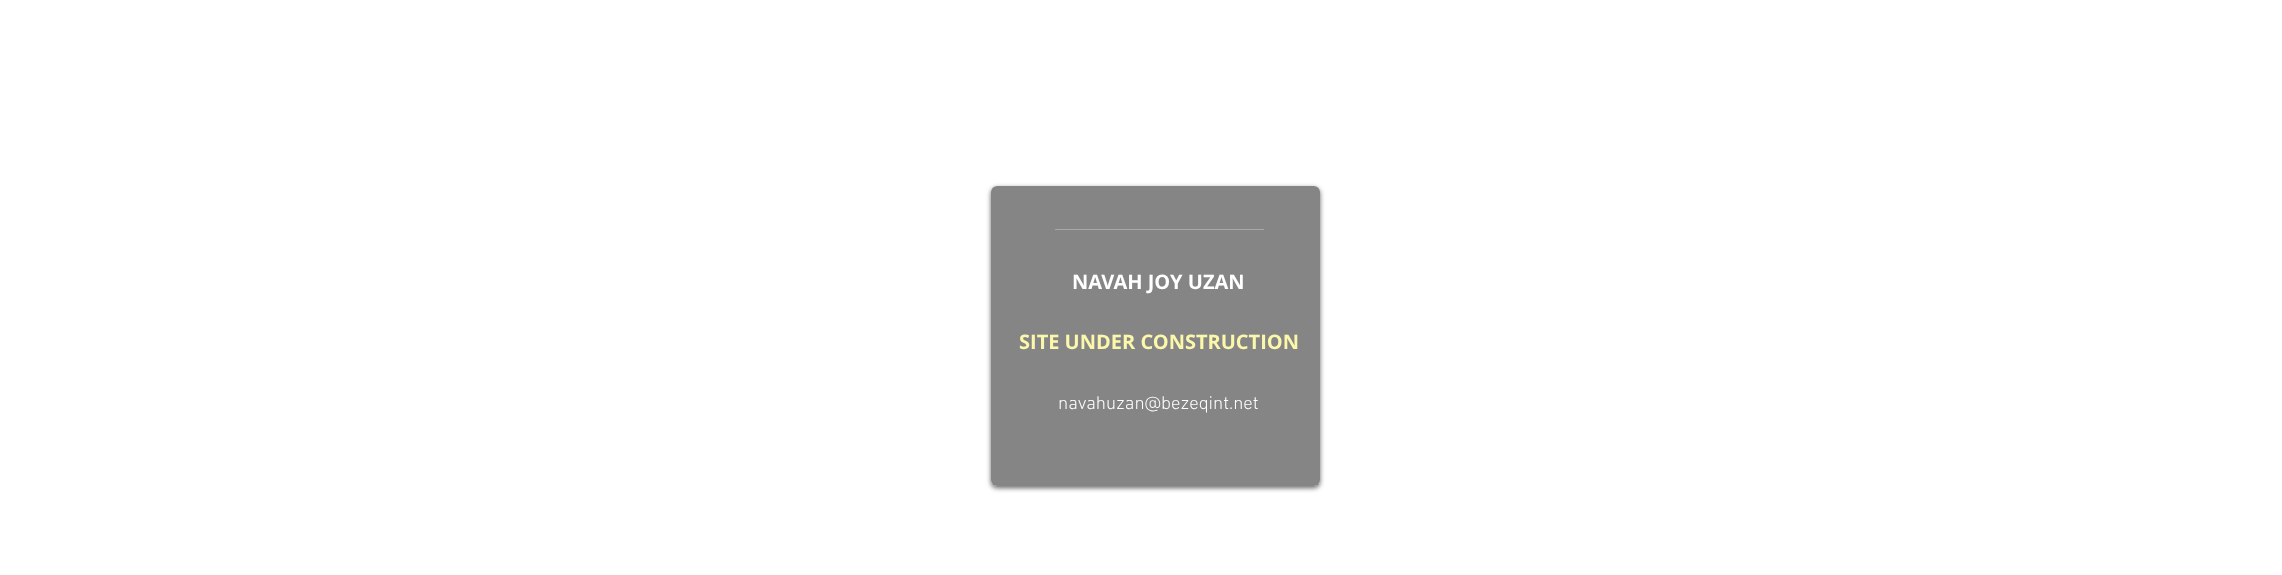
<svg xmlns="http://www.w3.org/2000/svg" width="2282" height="575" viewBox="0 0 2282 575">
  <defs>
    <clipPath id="clip1"><path d="M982 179H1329V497H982ZM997 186H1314C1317.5 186 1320 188.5 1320 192V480C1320 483.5 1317.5 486 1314 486H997C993.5 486 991 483.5 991 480V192C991 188.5 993.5 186 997 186Z" clip-rule="evenodd"/></clipPath>
    <filter id="blur1" x="-50%" y="-200%" width="200%" height="500%"><feGaussianBlur stdDeviation="2.5"/></filter>
  </defs>
  <rect width="100%" height="100%" fill="#ffffff"/>
  <g clip-path="url(#clip1)">
    <rect x="991" y="188" width="329" height="300" rx="6" fill="#000000" fill-opacity="0.6" filter="url(#blur1)"/>
  </g>
  <rect x="991" y="186" width="329" height="300" rx="6" fill="#000000" fill-opacity="0.48"/>
  <rect x="1055" y="229" width="209" height="1" fill="#a9a9a9"/>
  <text x="1072" y="289" font-family="Open Sans" font-size="20" font-weight="bold" fill="#ffffff">NAVAH JOY UZAN</text>
  <text x="1019" y="349" font-family="Open Sans" font-size="20" font-weight="bold" fill="#fbf7ab">SITE UNDER CONSTRUCTION</text>
  <text x="1058" y="409" font-family="'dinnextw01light'" font-size="18.75" font-weight="300" fill="#ffffff">navahuzan@bezeqint.net</text>
</svg>
